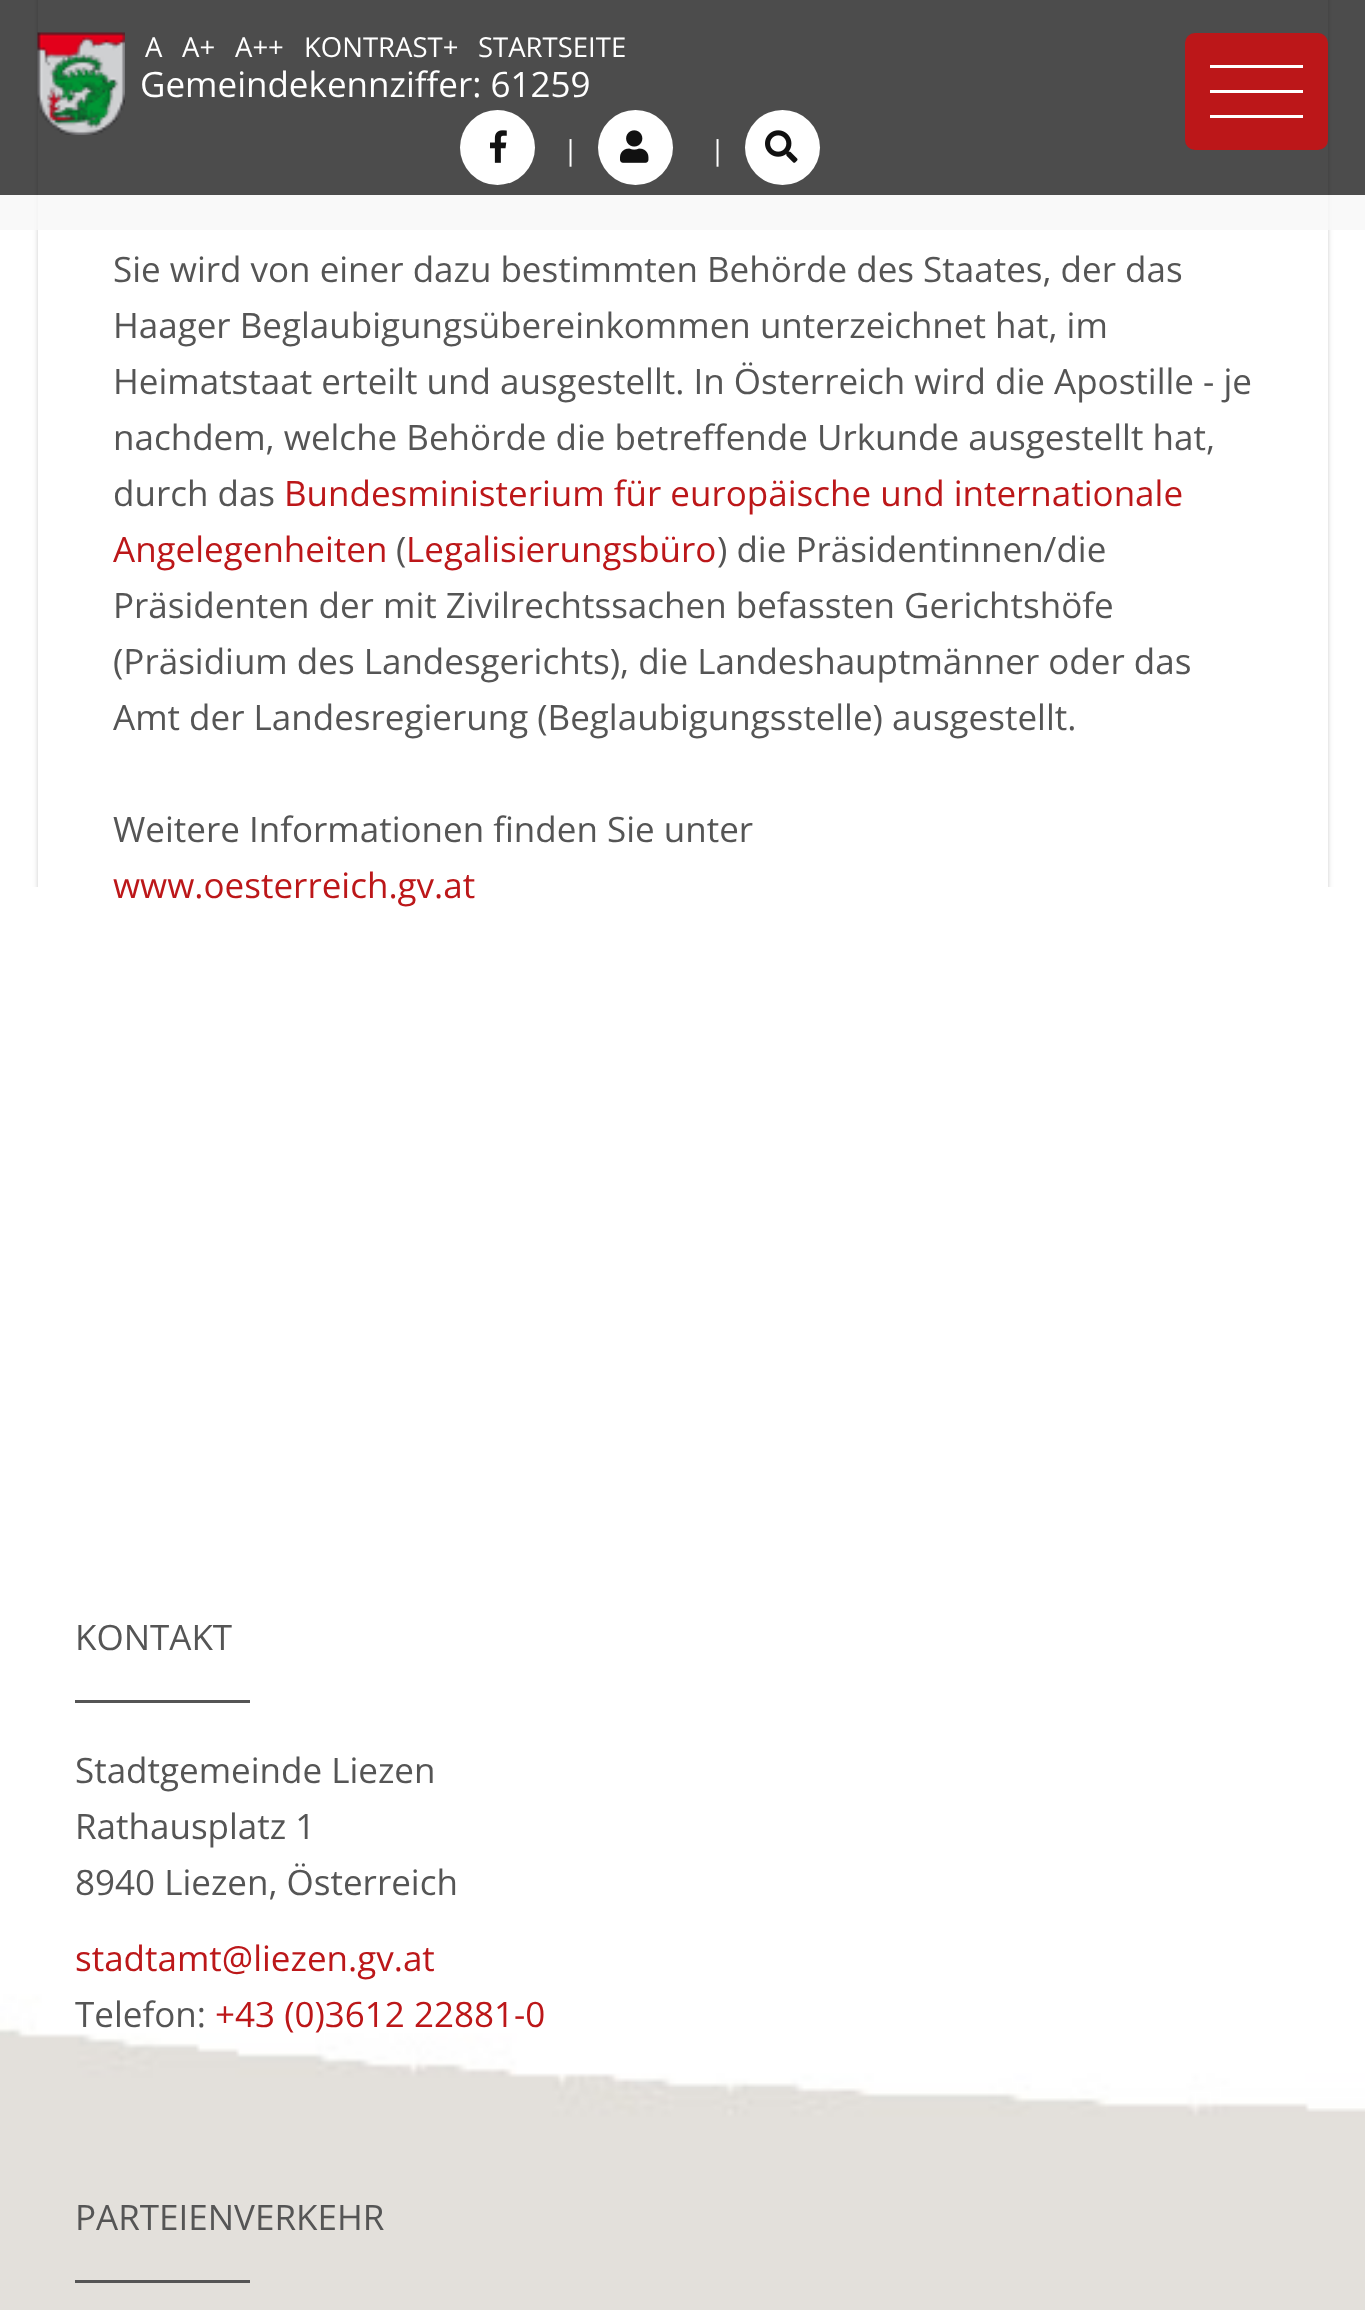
<svg xmlns="http://www.w3.org/2000/svg" width="1365" height="2310" viewBox="0 0 1365 2310">
  <defs>
    <filter id="blur1" x="-50%" y="-200%" width="200%" height="500%"><feGaussianBlur stdDeviation="2.5"/></filter>
  </defs>
  <rect width="100%" height="100%" fill="#ffffff"/>
  <rect x="38" y="-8" width="1290" height="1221" fill="#cccccc" filter="url(#blur1)"/>
  <rect x="38" y="0" width="1290" height="887" fill="#ffffff"/>
  <rect x="0" y="0" width="1365" height="195" fill="#000000" fill-opacity="0.7"/>
  <image x="37" y="32" width="88" height="103" href="img1.png"/>
  <text x="145" y="57" font-family="Open Sans" font-size="27.5" fill="#ffffff">A</text>
  <text x="182" y="57" font-family="Open Sans" font-size="27.5" fill="#ffffff">A+</text>
  <text x="235" y="57" font-family="Open Sans" font-size="27.5" fill="#ffffff">A++</text>
  <text x="304" y="57" font-family="Open Sans" font-size="27.5" fill="#ffffff">KONTRAST+</text>
  <text x="478" y="57" font-family="Open Sans" font-size="27.5" fill="#ffffff">STARTSEITE</text>
  <text x="140" y="97" font-family="Open Sans" font-size="35" fill="#ffffff">Gemeindekennziffer: 61259</text>
  <rect x="1185" y="33" width="143" height="117" rx="10" fill="#bc1719"/>
  <rect x="1210" y="65" width="93" height="3" fill="#ffffff"/>
  <rect x="1210" y="90" width="93" height="3" fill="#ffffff"/>
  <rect x="1210" y="115" width="93" height="3" fill="#ffffff"/>
  <circle cx="497.5" cy="147.5" r="37.5" fill="#ffffff"/>
  <image x="490" y="130" width="17" height="33" href="img2.png"/>
  <text x="563" y="160" font-family="Open Sans" font-size="27.5" fill="#ffffff">|</text>
  <circle cx="635.5" cy="147.5" r="37.5" fill="#ffffff"/>
  <image x="620" y="130" width="29" height="33" href="img3.png"/>
  <text x="710" y="160" font-family="Open Sans" font-size="27.5" fill="#ffffff">|</text>
  <circle cx="782.5" cy="147.5" r="37.5" fill="#ffffff"/>
  <image x="765" y="130" width="33" height="33" href="img4.png"/>
  <rect x="0" y="195" width="1365" height="35" fill="#f7f7f7" fill-opacity="0.8"/>
  <text x="113" y="282" font-family="Open Sans" font-size="35" fill="#555555">Sie wird von einer dazu bestimmten Behörde des Staates, der das</text>
  <text x="113" y="338" font-family="Open Sans" font-size="35" fill="#555555">Haager Beglaubigungsübereinkommen unterzeichnet hat, im</text>
  <text x="113" y="394" font-family="Open Sans" font-size="35" fill="#555555">Heimatstaat erteilt und ausgestellt. In Österreich wird die Apostille - je</text>
  <text x="113" y="450" font-family="Open Sans" font-size="35" fill="#555555">nachdem, welche Behörde die betreffende Urkunde ausgestellt hat,</text>
  <text x="113" y="506" font-family="Open Sans" font-size="35" fill="#555555">durch das</text>
  <text x="284" y="506" font-family="Open Sans" font-size="35" fill="#bc1719">Bundesministerium für europäische und internationale</text>
  <text x="113" y="562" font-family="Open Sans" font-size="35" fill="#bc1719">Angelegenheiten</text>
  <text x="396" y="562" font-family="Open Sans" font-size="35" fill="#555555">(</text>
  <text x="406" y="562" font-family="Open Sans" font-size="35" fill="#bc1719">Legalisierungsbüro</text>
  <text x="717" y="562" font-family="Open Sans" font-size="35" fill="#555555">) die Präsidentinnen/die</text>
  <text x="113" y="618" font-family="Open Sans" font-size="35" fill="#555555">Präsidenten der mit Zivilrechtssachen befassten Gerichtshöfe</text>
  <text x="113" y="674" font-family="Open Sans" font-size="35" fill="#555555">(Präsidium des Landesgerichts), die Landeshauptmänner oder das</text>
  <text x="113" y="730" font-family="Open Sans" font-size="35" fill="#555555">Amt der Landesregierung (Beglaubigungsstelle) ausgestellt.</text>
  <text x="113" y="842" font-family="Open Sans" font-size="35" fill="#555555">Weitere Informationen finden Sie unter</text>
  <image x="0" y="887" width="1365" height="1423" href="img5.png"/>
  <text x="113" y="898" font-family="Open Sans" font-size="35" fill="#bc1719">www.oesterreich.gv.at</text>
  <text x="75" y="1650" font-family="Open Sans" font-size="35" fill="#555555">KONTAKT</text>
  <rect x="75" y="1700" width="175" height="3" fill="#555555"/>
  <text x="75" y="1783" font-family="Open Sans" font-size="35" fill="#555555">Stadtgemeinde Liezen</text>
  <text x="75" y="1839" font-family="Open Sans" font-size="35" fill="#555555">Rathausplatz 1</text>
  <text x="75" y="1895" font-family="Open Sans" font-size="35" fill="#555555">8940 Liezen, Österreich</text>
  <text x="75" y="1971" font-family="Open Sans" font-size="35" fill="#bc1719">stadtamt@liezen.gv.at</text>
  <text x="75" y="2027" font-family="Open Sans" font-size="35" fill="#555555">Telefon:</text>
  <text x="215" y="2027" font-family="Open Sans" font-size="35" fill="#bc1719">+43 (0)3612 22881-0</text>
  <text x="75" y="2230" font-family="Open Sans" font-size="35" fill="#555555">PARTEIENVERKEHR</text>
  <rect x="75" y="2280" width="175" height="3" fill="#555555"/>
</svg>
